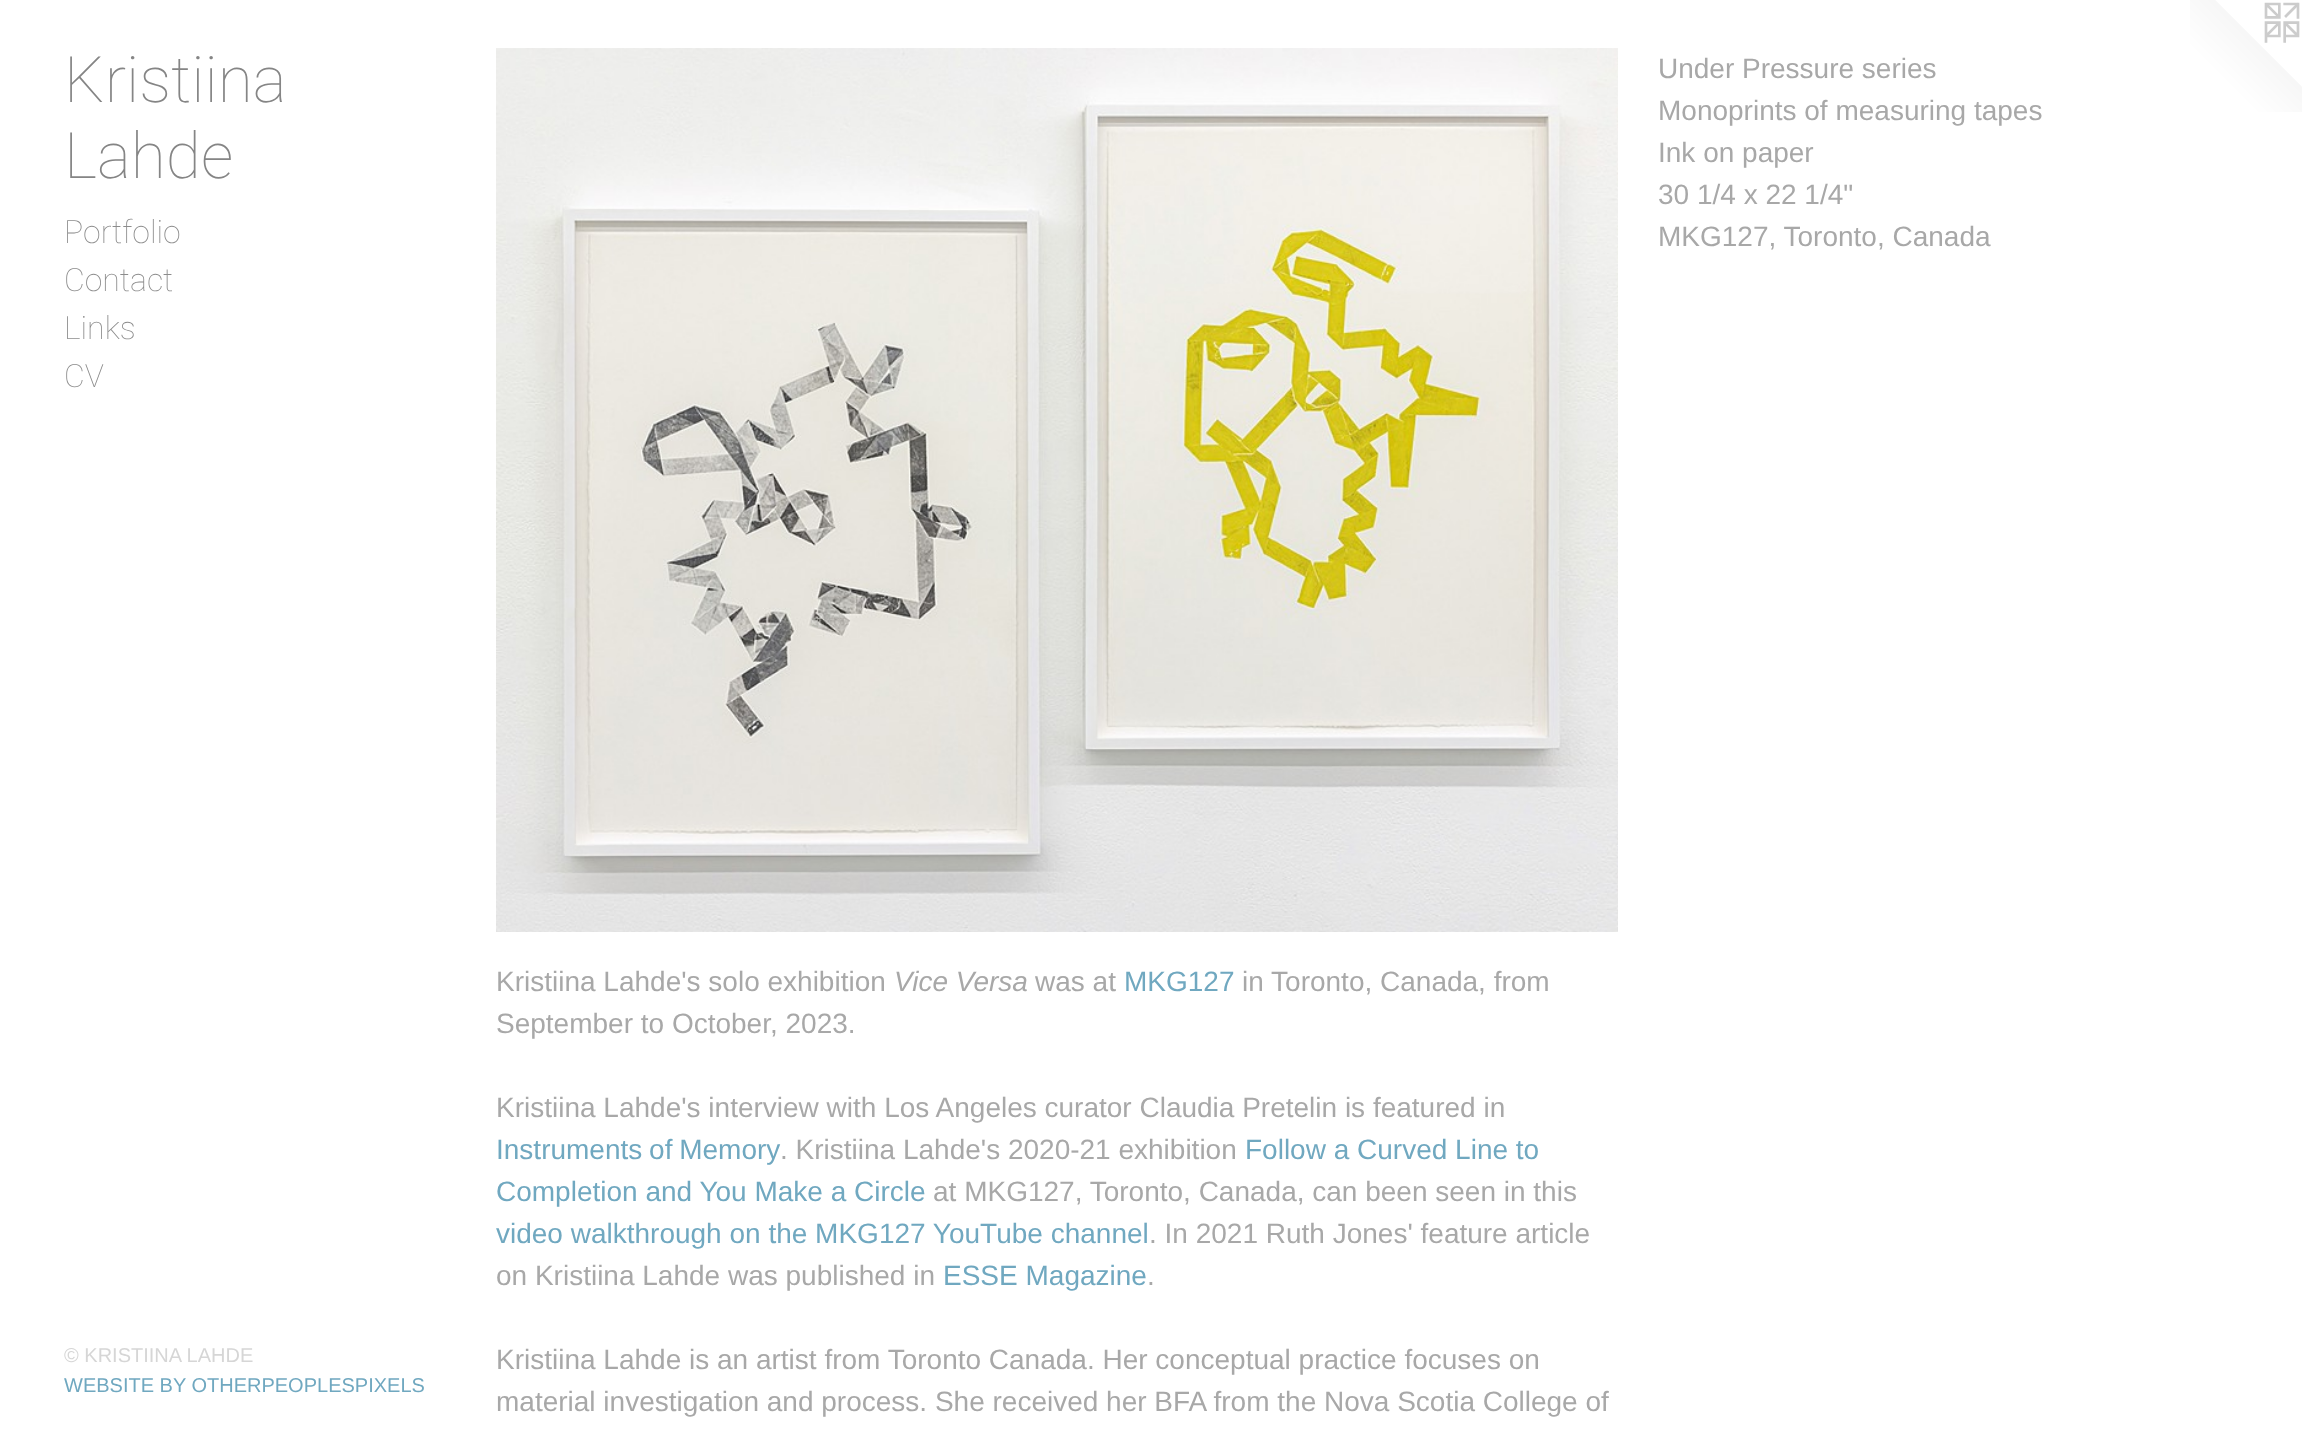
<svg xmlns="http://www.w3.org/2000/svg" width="2302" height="1445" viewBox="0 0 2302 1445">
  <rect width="100%" height="100%" fill="#ffffff"/>
  <text x="64" y="102" font-family="Roboto" font-size="64" font-weight="100" fill="#858585">Kristiina</text>
  <text x="64" y="178" font-family="Roboto" font-size="64" font-weight="100" fill="#858585">Lahde</text>
  <text x="64" y="243" font-family="Roboto" font-size="32" font-weight="100" fill="#8c8c8c">Portfolio</text>
  <text x="64" y="291" font-family="Roboto" font-size="32" font-weight="100" fill="#8c8c8c">Contact</text>
  <text x="64" y="339" font-family="Roboto" font-size="32" font-weight="100" fill="#8c8c8c">Links</text>
  <text x="64" y="387" font-family="Roboto" font-size="32" font-weight="100" fill="#8c8c8c">CV</text>
  <text x="64" y="1362" font-family="Liberation Sans" font-size="20" fill="#d6d6d6">© KRISTIINA LAHDE</text>
  <text x="64" y="1392" font-family="Liberation Sans" font-size="20" fill="#70a8c0">WEBSITE BY OTHERPEOPLESPIXELS</text>
  <image x="496" y="48" width="1122" height="884" href="img1.png"/>
  <text x="1658" y="78" font-family="Liberation Sans" font-size="28" fill="#a8a8a8">Under Pressure series</text>
  <text x="1658" y="120" font-family="Liberation Sans" font-size="28" fill="#a8a8a8">Monoprints of measuring tapes</text>
  <text x="1658" y="162" font-family="Liberation Sans" font-size="28" fill="#a8a8a8">Ink on paper</text>
  <text x="1658" y="204" font-family="Liberation Sans" font-size="28" fill="#a8a8a8">30 1/4 x 22 1/4"</text>
  <text x="1658" y="246" font-family="Liberation Sans" font-size="28" fill="#a8a8a8">MKG127, Toronto, Canada</text>
  <text x="496" y="991" font-family="Liberation Sans" font-size="28" fill="#a8a8a8">Kristiina Lahde's solo exhibition</text>
  <text x="894" y="991" font-family="Liberation Sans" font-size="28" font-style="italic" fill="#a8a8a8">Vice Versa</text>
  <text x="1035" y="991" font-family="Liberation Sans" font-size="28" fill="#a8a8a8">was at</text>
  <text x="1124" y="991" font-family="Liberation Sans" font-size="28" fill="#70a8c0">MKG127</text>
  <text x="1242" y="991" font-family="Liberation Sans" font-size="28" fill="#a8a8a8">in Toronto, Canada, from</text>
  <text x="496" y="1033" font-family="Liberation Sans" font-size="28" fill="#a8a8a8">September to October, 2023.</text>
  <text x="496" y="1117" font-family="Liberation Sans" font-size="28" fill="#a8a8a8">Kristiina Lahde's interview with Los Angeles curator Claudia Pretelin is featured in</text>
  <text x="496" y="1159" word-spacing="-1" font-family="Liberation Sans" font-size="28" fill="#70a8c0">Instruments of Memory</text>
  <text x="780" y="1159" font-family="Liberation Sans" font-size="28" fill="#a8a8a8">. Kristiina Lahde's 2020-21 exhibition</text>
  <text x="1245" y="1159" font-family="Liberation Sans" font-size="28" fill="#70a8c0">Follow a Curved Line to</text>
  <text x="496" y="1201" font-family="Liberation Sans" font-size="28" fill="#70a8c0">Completion and You Make a Circle</text>
  <text x="933" y="1201" font-family="Liberation Sans" font-size="28" fill="#a8a8a8">at MKG127, Toronto, Canada, can been seen in this</text>
  <text x="496" y="1243" font-family="Liberation Sans" font-size="28" fill="#70a8c0">video walkthrough on the MKG127 YouTube channel</text>
  <text x="1149" y="1243" font-family="Liberation Sans" font-size="28" fill="#a8a8a8">. In 2021 Ruth Jones' feature article</text>
  <text x="496" y="1285" font-family="Liberation Sans" font-size="28" fill="#a8a8a8">on Kristiina Lahde was published in</text>
  <text x="943" y="1285" font-family="Liberation Sans" font-size="28" fill="#70a8c0">ESSE Magazine</text>
  <text x="1147" y="1285" font-family="Liberation Sans" font-size="28" fill="#a8a8a8">.</text>
  <text x="496" y="1369" font-family="Liberation Sans" font-size="28" fill="#a8a8a8">Kristiina Lahde is an artist from Toronto Canada. Her conceptual practice focuses on</text>
  <text x="496" y="1411" font-family="Liberation Sans" font-size="28" fill="#a8a8a8">material investigation and process. She received her BFA from the Nova Scotia College of</text>
  <image x="2190" y="0" width="112" height="112" href="img2.png"/>
</svg>
